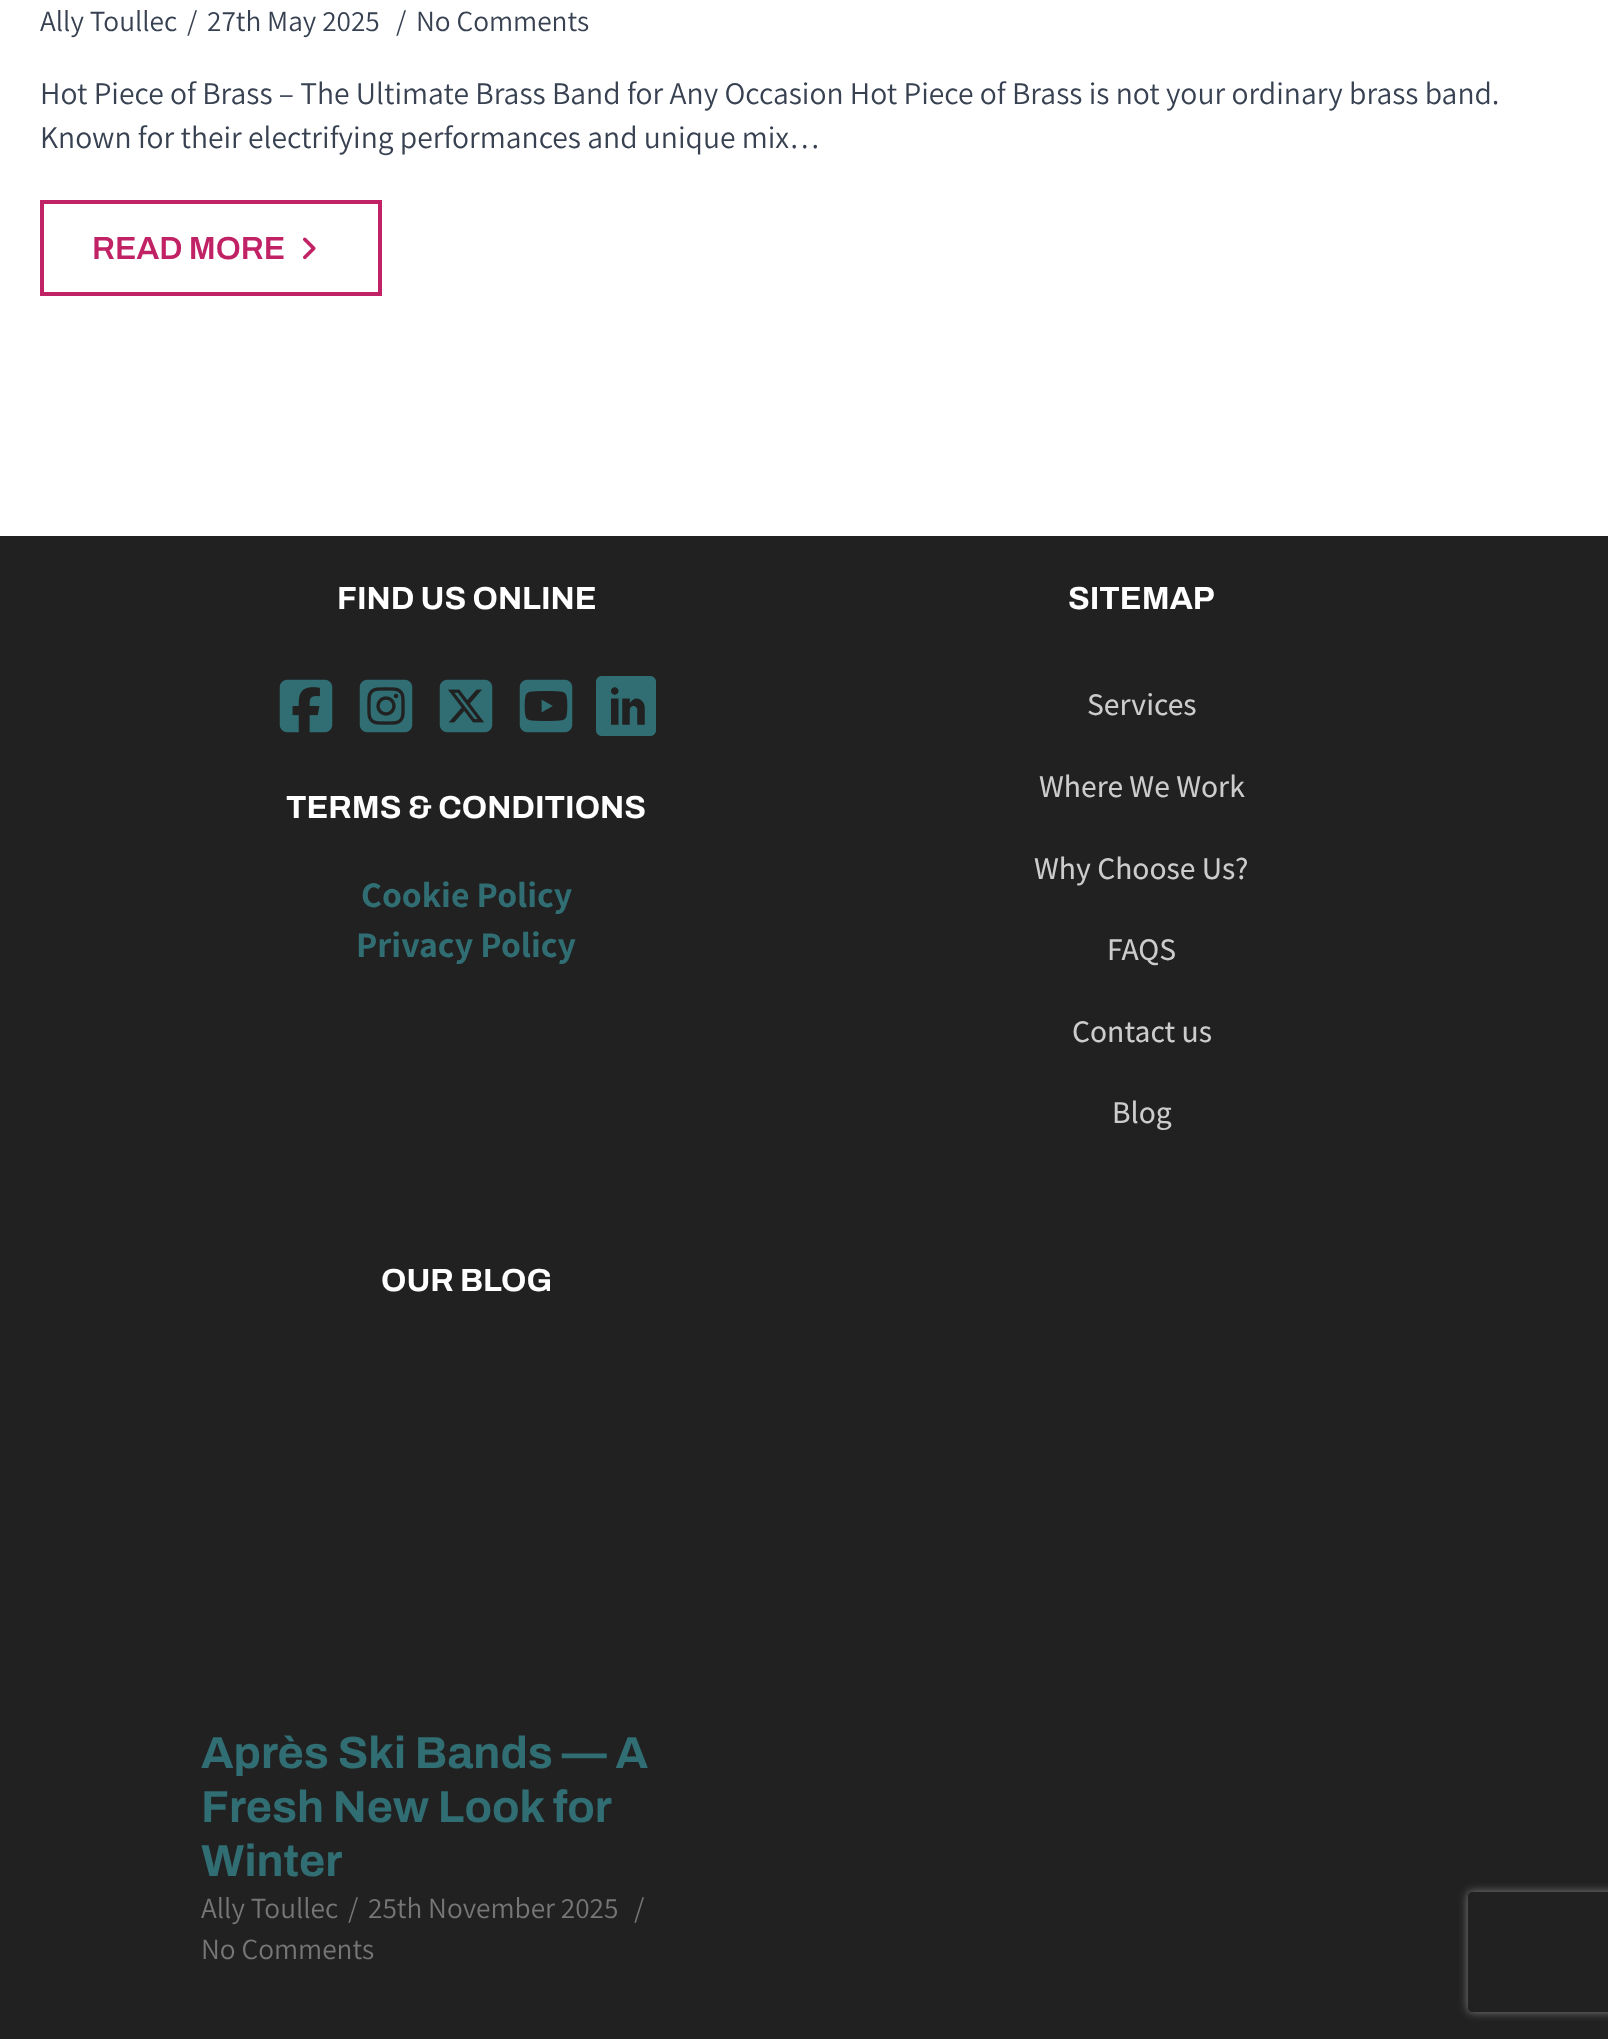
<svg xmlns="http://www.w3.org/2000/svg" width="1608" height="2039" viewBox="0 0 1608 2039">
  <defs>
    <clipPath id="clip1"><path d="M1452 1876H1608V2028H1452ZM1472 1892H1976C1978 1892 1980 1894 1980 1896V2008C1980 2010 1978 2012 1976 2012H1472C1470 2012 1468 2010 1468 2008V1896C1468 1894 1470 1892 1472 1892Z" clip-rule="evenodd"/></clipPath>
    <filter id="blur1" x="-50%" y="-200%" width="200%" height="500%"><feGaussianBlur stdDeviation="5"/></filter>
  </defs>
  <rect width="100%" height="100%" fill="#ffffff"/>
  <text x="40" y="31" font-family="Assistant" font-size="29.25" fill="#374151">Ally Toullec</text>
  <text x="187" y="31" font-family="Assistant" font-size="29.25" fill="#374151">/</text>
  <text x="207" y="31" font-family="Assistant" font-size="29.25" fill="#374151">27th May 2025</text>
  <text x="396" y="31" font-family="Assistant" font-size="29.25" fill="#374151">/</text>
  <text x="416" y="31" font-family="Assistant" font-size="29.25" fill="#374151">No Comments</text>
  <text x="40" y="104" font-family="Assistant" font-size="31.5" fill="#374151">Hot Piece of Brass – The Ultimate Brass Band for Any Occasion Hot Piece of Brass is not your ordinary brass band.</text>
  <text x="40" y="148" font-family="Assistant" font-size="31.5" fill="#374151">Known for their electrifying performances and unique mix…</text>
  <rect x="42" y="202" width="338" height="92" fill="none" stroke="#c12265" stroke-width="4"/>
  <text x="92" y="259" font-family="Archivo" font-size="32" font-weight="600" fill="#c12265">READ MORE</text>
  <image x="303" y="237" width="13" height="23" href="img1.png"/>
  <rect x="0" y="536" width="1608" height="1503" fill="#212121"/>
  <text x="337" y="609" font-family="Archivo" font-size="32" font-weight="bold" fill="#ffffff">FIND US ONLINE</text>
  <image x="279" y="679" width="54" height="54" href="img2.png"/>
  <image x="359" y="679" width="54" height="54" href="img3.png"/>
  <image x="439" y="679" width="54" height="54" href="img4.png"/>
  <image x="519" y="679" width="54" height="54" href="img5.png"/>
  <image x="596" y="676" width="60" height="60" href="img6.png"/>
  <text x="286" y="818" font-family="Archivo" font-size="32" font-weight="bold" fill="#ffffff">TERMS &amp; CONDITIONS</text>
  <text x="361" y="907" font-family="Assistant" font-size="36" font-weight="bold" fill="#306e73">Cookie Policy</text>
  <text x="356" y="957" font-family="Assistant" font-size="36" font-weight="bold" fill="#306e73">Privacy Policy</text>
  <text x="1068" y="609" font-family="Archivo" font-size="32" font-weight="bold" fill="#ffffff">SITEMAP</text>
  <text x="1087" y="715" font-family="Assistant" font-size="31.5" font-weight="500" fill="#cccccc">Services</text>
  <text x="1039" y="797" font-family="Assistant" font-size="31.5" font-weight="500" fill="#cccccc">Where We Work</text>
  <text x="1034" y="879" font-family="Assistant" font-size="31.5" font-weight="500" fill="#cccccc">Why Choose Us?</text>
  <text x="1107" y="960" font-family="Assistant" font-size="31.5" font-weight="500" fill="#cccccc">FAQS</text>
  <text x="1072" y="1042" font-family="Assistant" font-size="31.5" font-weight="500" fill="#cccccc">Contact us</text>
  <text x="1112" y="1123" font-family="Assistant" font-size="31.5" font-weight="500" fill="#cccccc">Blog</text>
  <text x="381" y="1291" font-family="Archivo" font-size="32" font-weight="bold" fill="#ffffff">OUR BLOG</text>
  <text x="201" y="1768" font-family="Archivo" font-size="45" font-weight="bold" fill="#306e73">Après Ski Bands — A</text>
  <text x="201" y="1822" font-family="Archivo" font-size="45" font-weight="bold" fill="#306e73">Fresh New Look for</text>
  <text x="201" y="1876" font-family="Archivo" font-size="45" font-weight="bold" fill="#306e73">Winter</text>
  <text x="201" y="1918" font-family="Assistant" font-size="29.25" fill="#777676">Ally Toullec</text>
  <text x="348" y="1918" font-family="Assistant" font-size="29.25" fill="#777676">/</text>
  <text x="368" y="1918" font-family="Assistant" font-size="29.25" fill="#777676">25th November 2025</text>
  <text x="634" y="1918" font-family="Assistant" font-size="29.25" fill="#777676">/</text>
  <text x="201" y="1959" font-family="Assistant" font-size="29.25" fill="#777676">No Comments</text>
  <g clip-path="url(#clip1)">
    <rect x="1468" y="1892" width="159" height="120" rx="4" fill="#808080" filter="url(#blur1)"/>
  </g>
</svg>
